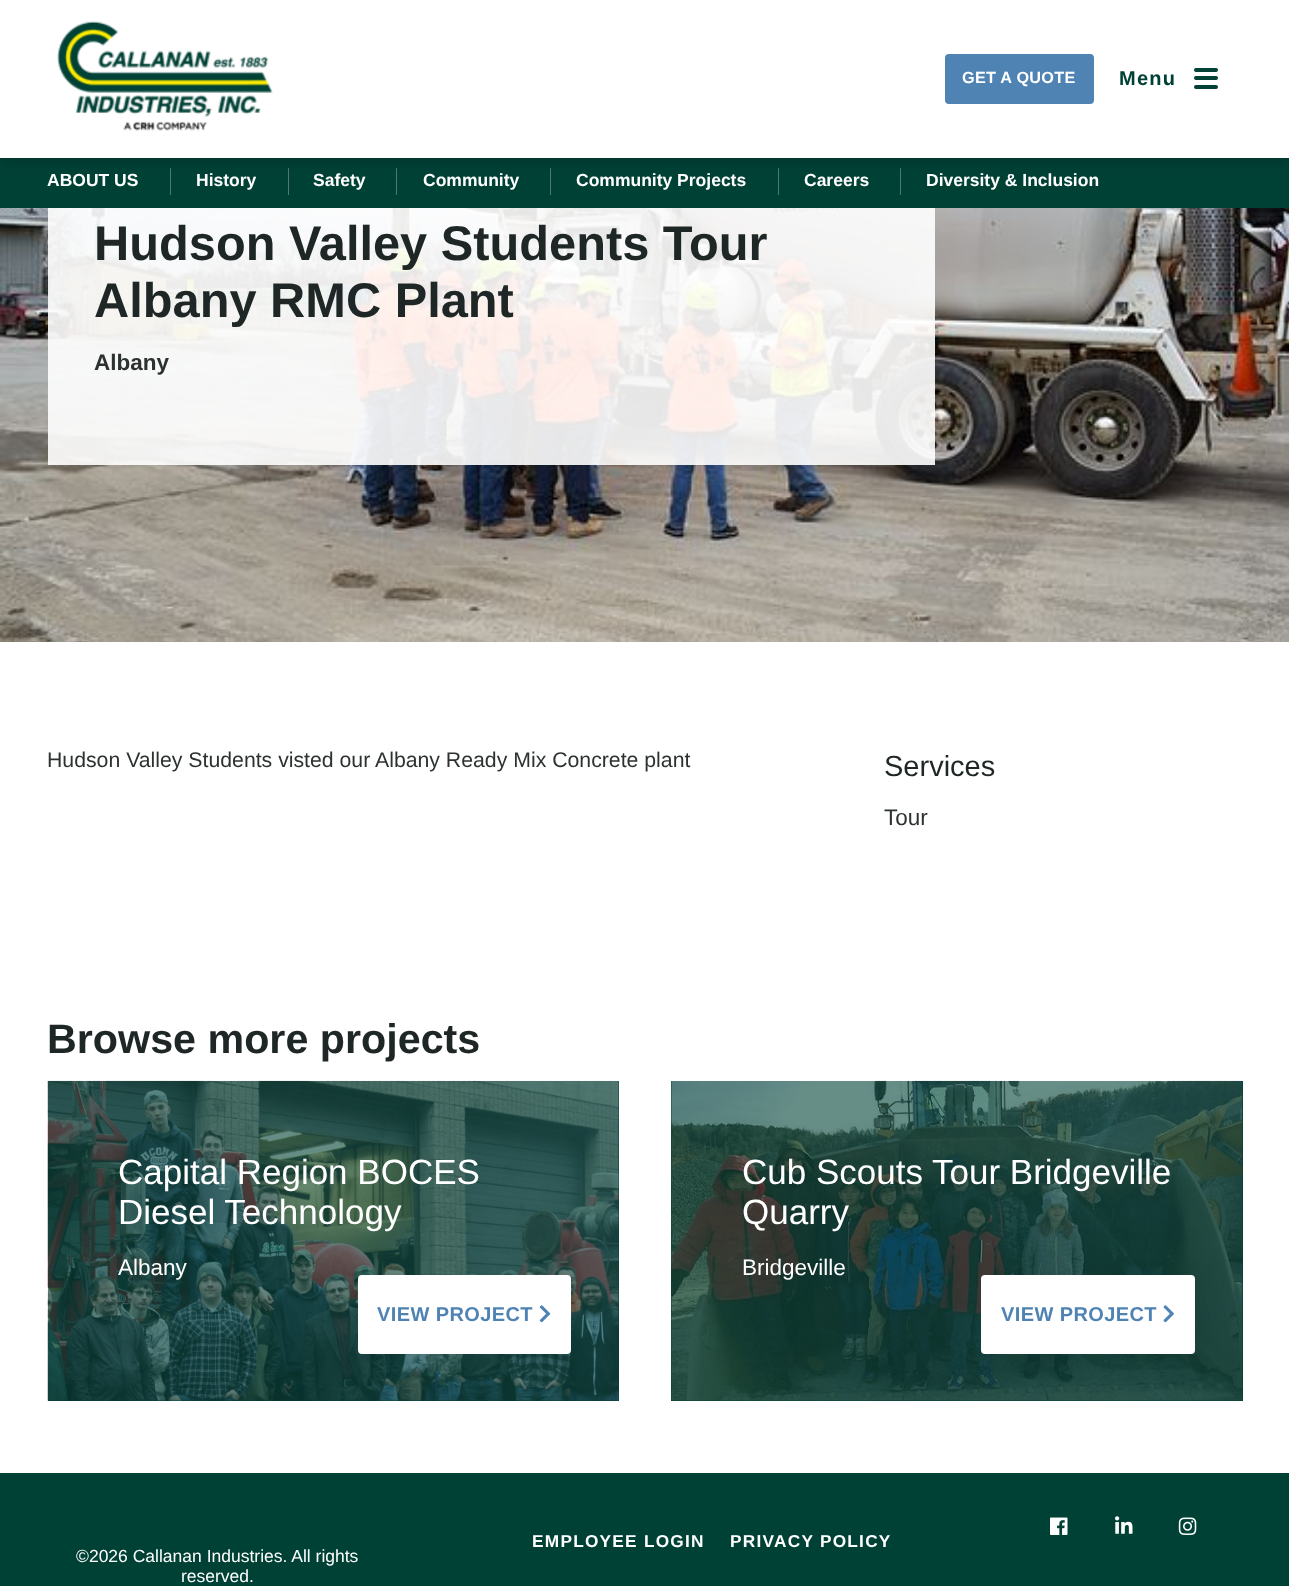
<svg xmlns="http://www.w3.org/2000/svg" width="1289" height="1586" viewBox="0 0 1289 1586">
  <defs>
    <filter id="blur1" x="-50%" y="-200%" width="200%" height="500%"><feGaussianBlur stdDeviation="5.5"/></filter>
  </defs>
  <rect width="100%" height="100%" fill="#ffffff"/>
  <rect x="0" y="158" width="1289" height="50" fill="#004136"/>
  <rect x="170" y="168" width="1" height="27" fill="#4d7a72"/>
  <rect x="288" y="168" width="1" height="27" fill="#4d7a72"/>
  <rect x="396" y="168" width="1" height="27" fill="#4d7a72"/>
  <rect x="550" y="168" width="1" height="27" fill="#4d7a72"/>
  <rect x="778" y="168" width="1" height="27" fill="#4d7a72"/>
  <rect x="900" y="168" width="1" height="27" fill="#4d7a72"/>
  <rect x="0" y="-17" width="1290" height="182" fill="#000000" fill-opacity="0.13" filter="url(#blur1)"/>
  <rect x="0" y="0" width="1289" height="158" fill="#ffffff"/>
  <image x="57" y="21" width="216" height="110" href="img1.png"/>
  <rect x="946.5" y="55.5" width="146" height="47" rx="2.5" fill="#4e83b3" stroke="#4e83b3" stroke-width="3"/>
  <text x="962" y="83" font-family="Liberation Sans" font-size="16.25" font-weight="bold" letter-spacing="0.25" fill="#ffffff">GET A QUOTE</text>
  <text x="1119" y="85" font-family="Liberation Sans" font-size="20" font-weight="bold" letter-spacing="1.25" fill="#004136">Menu</text>
  <rect x="1194" y="76" width="24" height="4" rx="2" fill="#004136"/>
  <rect x="1194" y="68" width="24" height="4" rx="2" fill="#004136"/>
  <rect x="1194" y="85" width="24" height="4" rx="2" fill="#004136"/>
  <text x="47" y="186" font-family="Liberation Sans" font-size="17.5" font-weight="bold" fill="#ffffff">ABOUT US</text>
  <text x="196" y="186" font-family="Liberation Sans" font-size="17.5" font-weight="bold" fill="#ffffff">History</text>
  <text x="313" y="186" font-family="Liberation Sans" font-size="17.5" font-weight="bold" fill="#ffffff">Safety</text>
  <text x="423" y="186" font-family="Liberation Sans" font-size="17.5" font-weight="bold" fill="#ffffff">Community</text>
  <text x="576" y="186" font-family="Liberation Sans" font-size="17.5" font-weight="bold" fill="#ffffff">Community Projects</text>
  <text x="804" y="186" font-family="Liberation Sans" font-size="17.5" font-weight="bold" fill="#ffffff">Careers</text>
  <text x="926" y="186" font-family="Liberation Sans" font-size="17.5" font-weight="bold" fill="#ffffff">Diversity &amp; Inclusion</text>
  <image x="0" y="208" width="1289" height="434" href="img2.png"/>
  <rect x="48" y="208" width="887" height="257" fill="#ffffff" fill-opacity="0.9"/>
  <text x="94" y="260" font-family="Liberation Sans" font-size="48.75" font-weight="bold" fill="#1e2726">Hudson Valley Students Tour</text>
  <text x="94" y="317" font-family="Liberation Sans" font-size="48.75" font-weight="bold" fill="#1e2726">Albany RMC Plant</text>
  <text x="94" y="370" font-family="Liberation Sans" font-size="22.5" font-weight="bold" fill="#2c3230">Albany</text>
  <text x="47" y="767" font-family="Liberation Sans" font-size="21.25" fill="#2c3230">Hudson Valley Students visted our Albany Ready Mix Concrete plant</text>
  <text x="884" y="776" font-family="Liberation Sans" font-size="29" fill="#1e2726">Services</text>
  <text x="884" y="825" font-family="Liberation Sans" font-size="22.5" fill="#2c3230">Tour</text>
  <text x="47" y="1053" font-family="Liberation Sans" font-size="41.25" font-weight="bold" fill="#1e2726">Browse more projects</text>
  <rect x="48" y="1081" width="571" height="320" fill="#004136"/>
  <image x="47" y="1080" width="572" height="321" href="img3.png"/>
  <text x="118" y="1184" font-family="Liberation Sans" font-size="35" fill="#ffffff">Capital Region BOCES</text>
  <text x="118" y="1224" font-family="Liberation Sans" font-size="35" fill="#ffffff">Diesel Technology</text>
  <text x="118" y="1275" font-family="Liberation Sans" font-size="22.5" fill="#ffffff">Albany</text>
  <rect x="359.5" y="1276.5" width="210" height="76" rx="2.5" fill="#ffffff" stroke="#ffffff" stroke-width="3"/>
  <text x="377" y="1321" font-family="Liberation Sans" font-size="20" font-weight="bold" letter-spacing="0.4" fill="#4e83b3">VIEW PROJECT</text>
  <image x="539" y="1305" width="12" height="18" href="img4.png"/>
  <rect x="671" y="1081" width="572" height="320" fill="#004136"/>
  <image x="671" y="1080" width="572" height="321" href="img5.png"/>
  <text x="742" y="1184" font-family="Liberation Sans" font-size="35" fill="#ffffff">Cub Scouts Tour Bridgeville</text>
  <text x="742" y="1224" font-family="Liberation Sans" font-size="35" fill="#ffffff">Quarry</text>
  <text x="742" y="1275" font-family="Liberation Sans" font-size="22.5" fill="#ffffff">Bridgeville</text>
  <rect x="982.5" y="1276.5" width="211" height="76" rx="2.5" fill="#ffffff" stroke="#ffffff" stroke-width="3"/>
  <text x="1001" y="1321" font-family="Liberation Sans" font-size="20" font-weight="bold" letter-spacing="0.4" fill="#4e83b3">VIEW PROJECT</text>
  <image x="1163" y="1305" width="11" height="18" href="img6.png"/>
  <rect x="0" y="1473" width="1289" height="113" fill="#004136"/>
  <image x="1050" y="1517" width="18" height="18" href="img7.png"/>
  <image x="1115" y="1516" width="18" height="18" href="img8.png"/>
  <image x="1178" y="1517" width="19" height="18" href="img9.png"/>
  <text x="532" y="1547" font-family="Liberation Sans" font-size="17.25" font-weight="bold" letter-spacing="1.25" fill="#ffffff">EMPLOYEE LOGIN</text>
  <text x="730" y="1547" font-family="Liberation Sans" font-size="17.25" font-weight="bold" letter-spacing="1.25" fill="#ffffff">PRIVACY POLICY</text>
  <text x="76" y="1562" font-family="Liberation Sans" font-size="17.5" fill="#ffffff">©2026 Callanan Industries. All rights</text>
  <text x="181" y="1582" font-family="Liberation Sans" font-size="17.5" fill="#ffffff">reserved.</text>
</svg>
